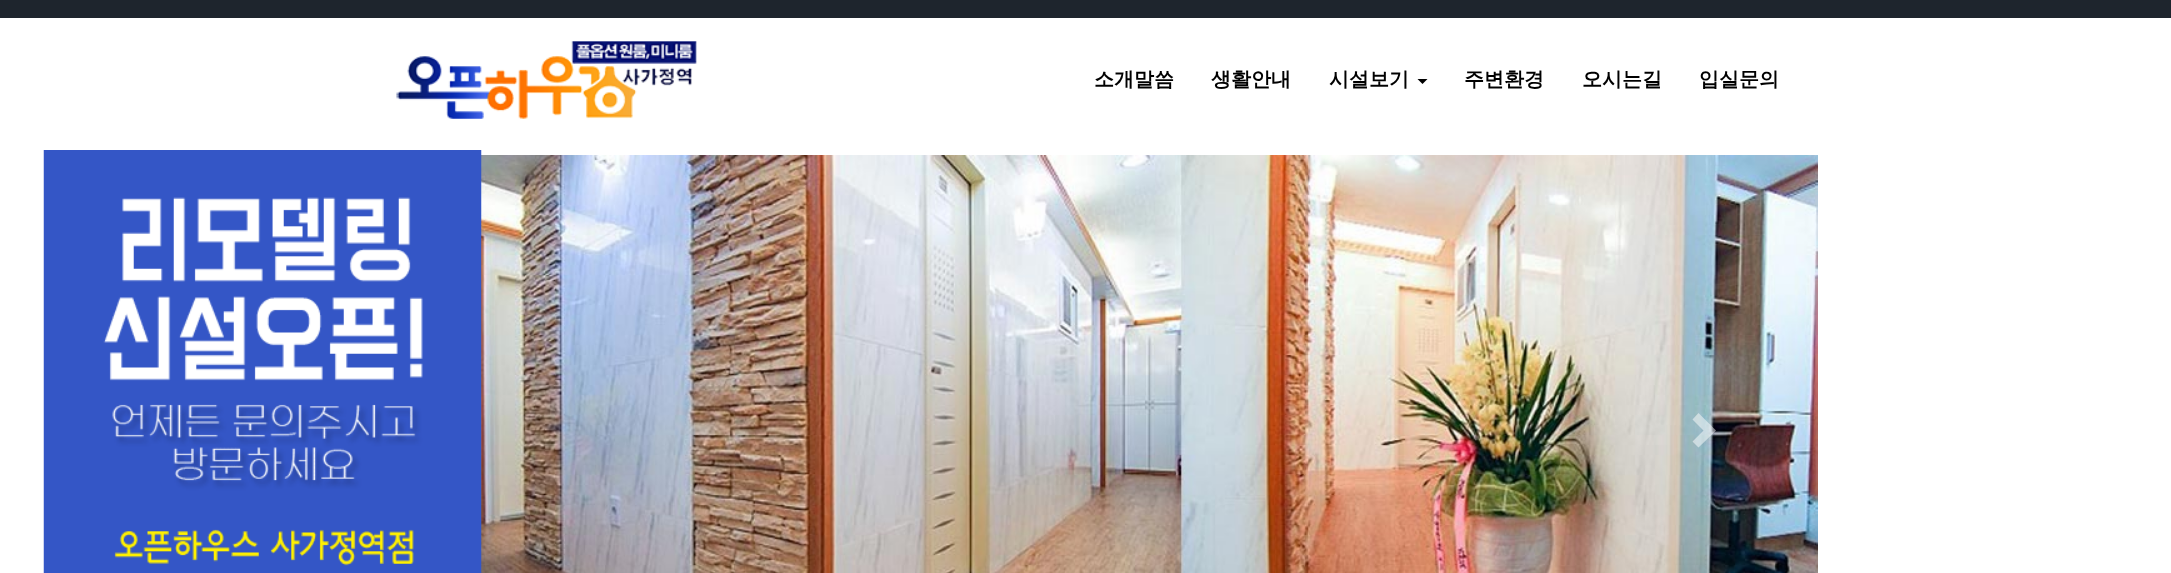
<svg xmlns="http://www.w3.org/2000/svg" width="2171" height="573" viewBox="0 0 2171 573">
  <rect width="100%" height="100%" fill="#ffffff"/>
  <rect x="0" y="0" width="2171" height="18" fill="#1e252d"/>
  <image x="396" y="41" width="301" height="78" href="img1.png"/>
  <text x="1094" y="86" font-family="WenQuanYi Zen Hei" font-size="20" font-weight="bold" fill="#000000">소개말씀</text>
  <text x="1211" y="86" font-family="WenQuanYi Zen Hei" font-size="20" font-weight="bold" fill="#000000">생활안내</text>
  <text x="1329" y="86" font-family="WenQuanYi Zen Hei" font-size="20" font-weight="bold" fill="#000000">시설보기</text>
  <path d="M1417.5 79H1427.5L1422.5 84Z" fill="#000000"/>
  <text x="1464" y="86" font-family="WenQuanYi Zen Hei" font-size="20" font-weight="bold" fill="#000000">주변환경</text>
  <text x="1582" y="86" font-family="WenQuanYi Zen Hei" font-size="20" font-weight="bold" fill="#000000">오시는길</text>
  <text x="1699" y="86" font-family="WenQuanYi Zen Hei" font-size="20" font-weight="bold" fill="#000000">입실문의</text>
  <image x="481" y="155" width="1337" height="418" href="img3.png"/>
  <image x="43" y="150" width="439" height="423" href="img2.png"/>
  <path d="M1716 430.5L1698.5 447.5L1692.5 441.5L1703.5 430.5L1692.5 419.5L1698.5 413Z" fill="#ffffff" fill-opacity="0.5"/>
</svg>
